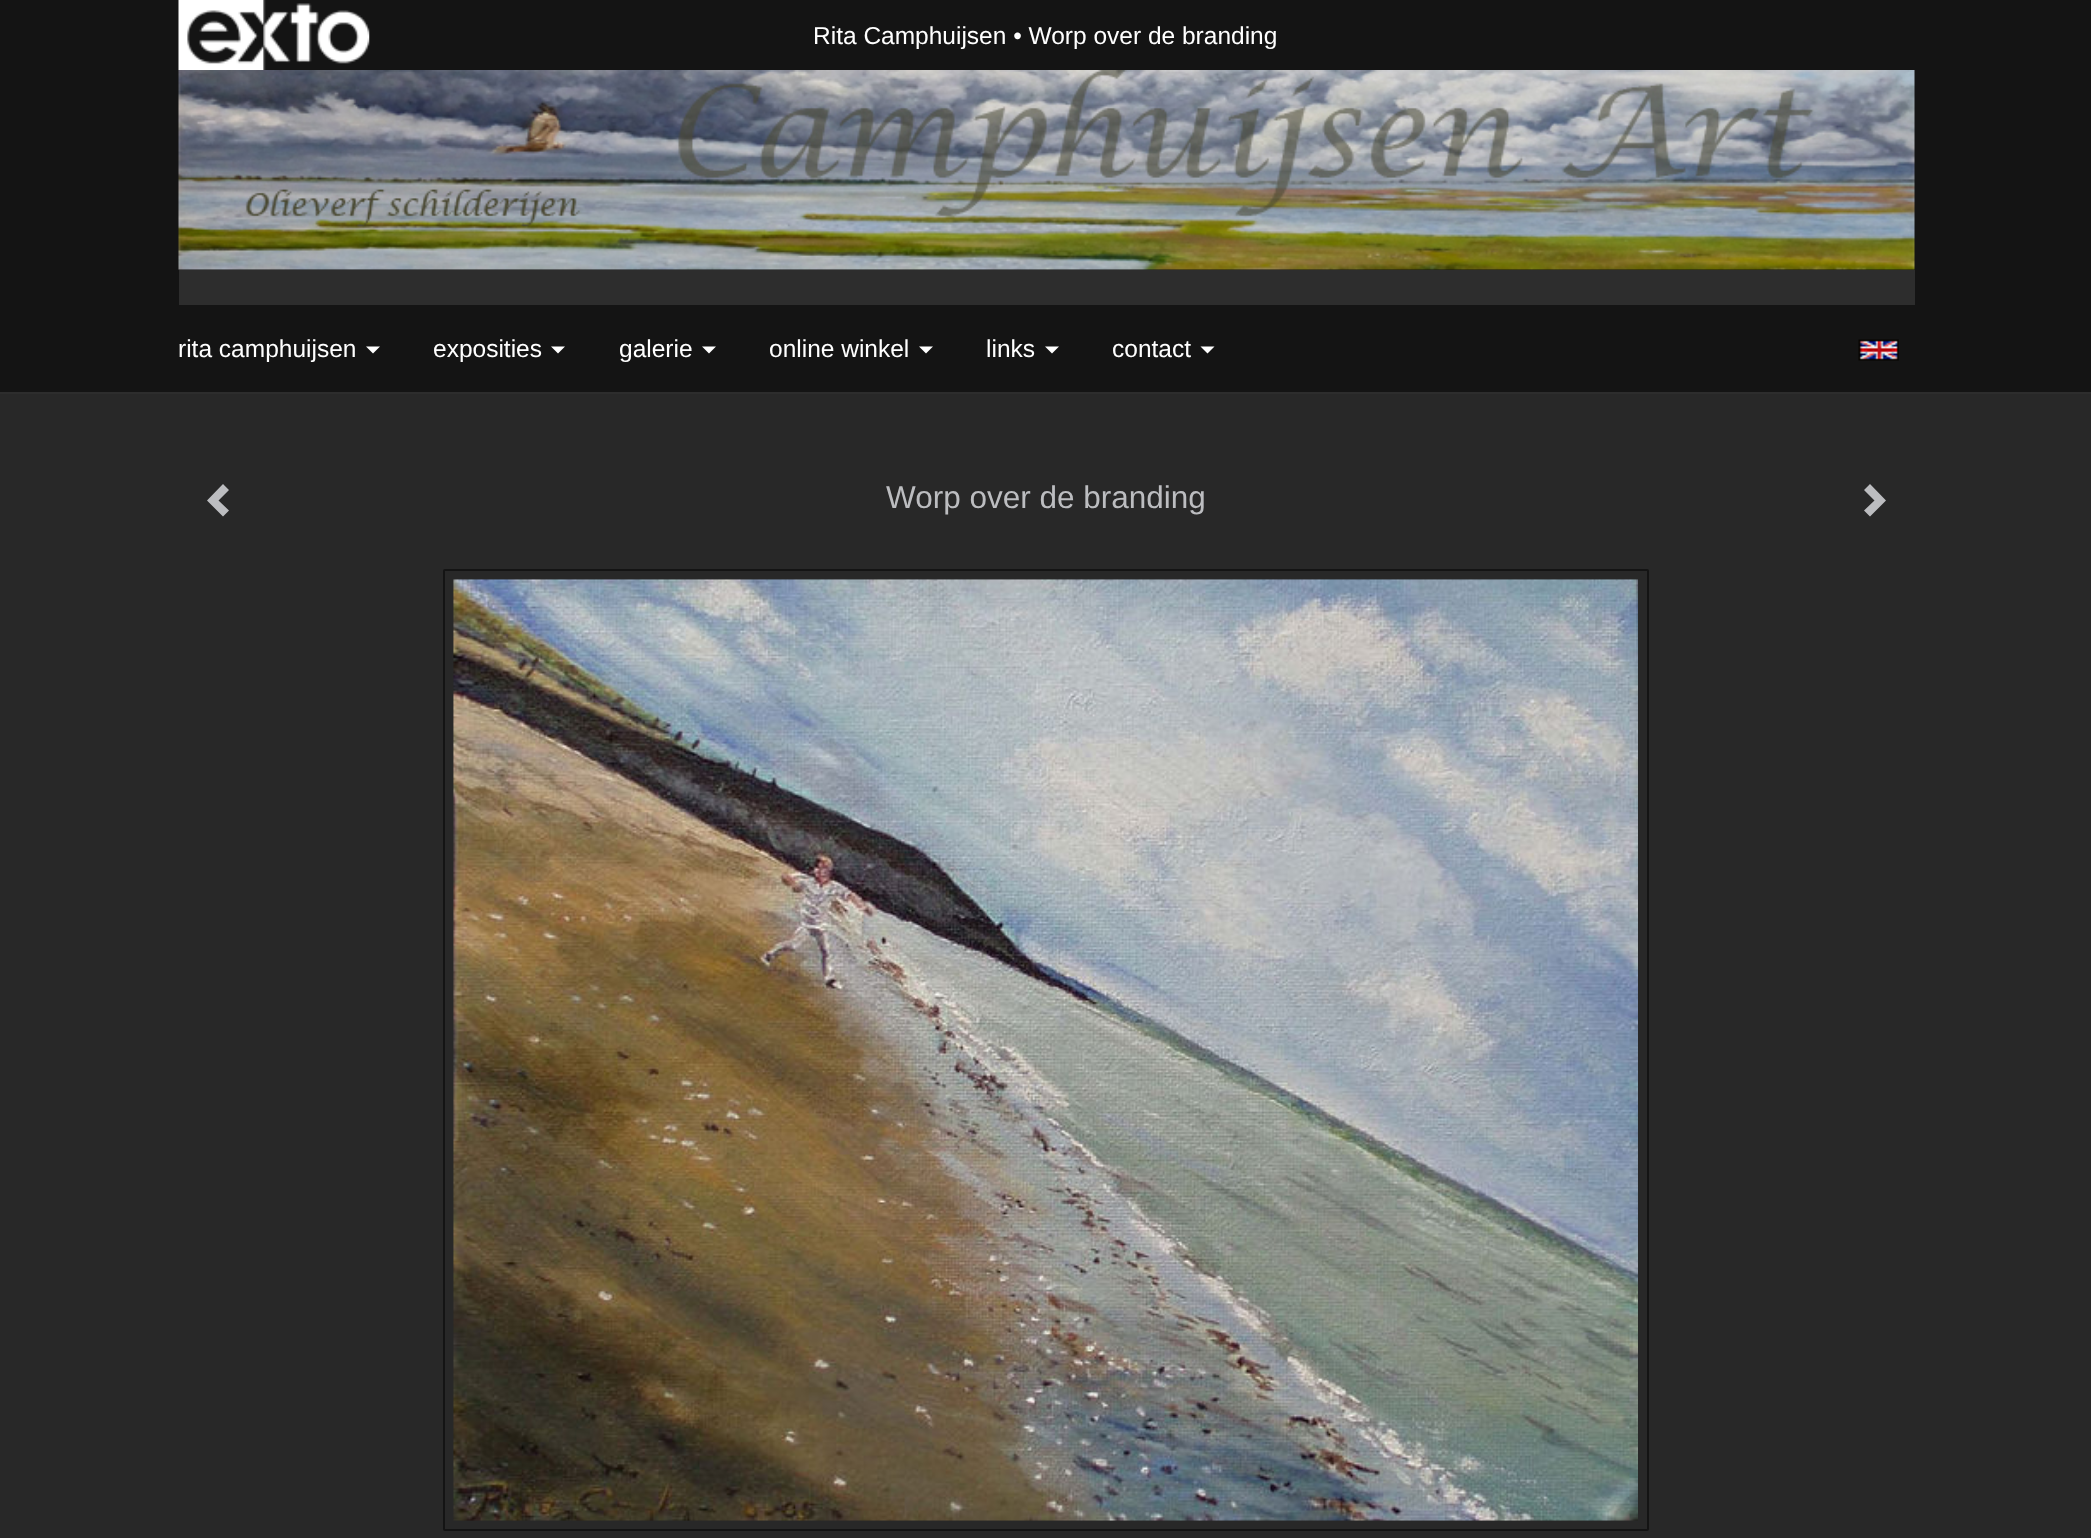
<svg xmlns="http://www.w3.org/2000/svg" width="2091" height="1538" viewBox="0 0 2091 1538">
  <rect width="100%" height="100%" fill="#282828"/>
  <rect x="0" y="0" width="2091" height="392" fill="#141414"/>
  <image x="178" y="0" width="192" height="70" href="img1.png"/>
  <text x="813" y="44" font-family="Liberation Sans" font-size="24.5" fill="#ffffff">Rita Camphuijsen • Worp over de branding</text>
  <image x="178" y="70" width="1737" height="200" href="img2.png"/>
  <rect x="179" y="270" width="1736" height="35" fill="#2d2d2d"/>
  <rect x="0" y="392" width="2091" height="2" fill="#2d2d2d"/>
  <text x="178" y="357" font-family="Liberation Sans" font-size="24.5" fill="#ffffff">rita camphuijsen</text>
  <path d="M366 346.5H380L373 353.5Z" fill="#ffffff"/>
  <text x="433" y="357" font-family="Liberation Sans" font-size="24.5" fill="#ffffff">exposities</text>
  <path d="M551 346.5H565L558 353.5Z" fill="#ffffff"/>
  <text x="619" y="357" font-family="Liberation Sans" font-size="24.5" fill="#ffffff">galerie</text>
  <path d="M702 346.5H716L709 353.5Z" fill="#ffffff"/>
  <text x="769" y="357" font-family="Liberation Sans" font-size="24.5" fill="#ffffff">online winkel</text>
  <path d="M919 346.5H933L926 353.5Z" fill="#ffffff"/>
  <text x="986" y="357" font-family="Liberation Sans" font-size="24.5" fill="#ffffff">links</text>
  <path d="M1045 346.5H1059L1052 353.5Z" fill="#ffffff"/>
  <text x="1112" y="357" font-family="Liberation Sans" font-size="24.5" fill="#ffffff">contact</text>
  <path d="M1200.5 346.5H1214.5L1207.5 353.5Z" fill="#ffffff"/>
  <image x="1858" y="339" width="41" height="22" href="img3.png"/>
  <path d="M229 490L218.5 500.5L229 510.5L223 516.5L207 500.5L223 484Z" fill="#bcbdc0"/>
  <text x="886" y="508" font-family="Liberation Sans" font-size="31.5" fill="#bcbdc0">Worp over de branding</text>
  <path d="M1886 500.5L1870 516.5L1864 510.5L1874.5 500.5L1864 490L1870 484Z" fill="#bcbdc0"/>
  <rect x="444" y="570" width="1204" height="960" rx="1" fill="none" stroke="#141414" stroke-width="2"/>
  <image x="453" y="579" width="1185" height="942" href="img4.png"/>
</svg>
